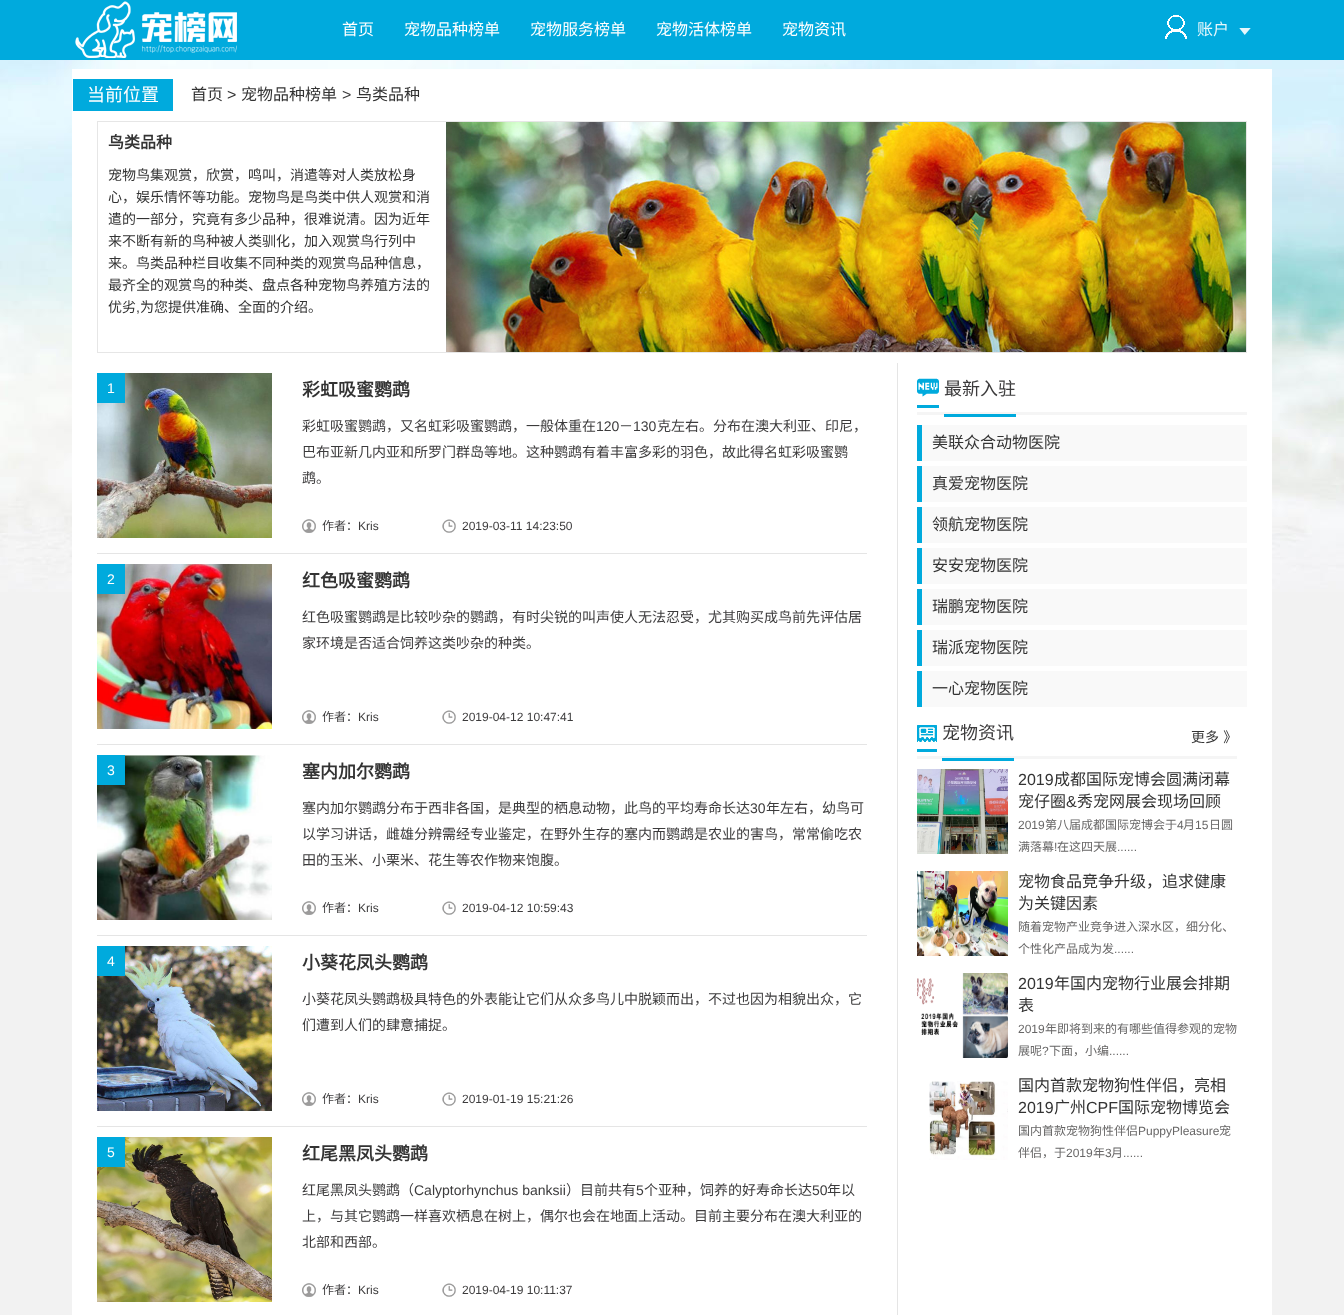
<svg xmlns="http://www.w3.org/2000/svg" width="1344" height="1315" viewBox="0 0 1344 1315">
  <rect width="100%" height="100%" fill="#f2f2f2"/>
  <image x="0" y="60" width="1344" height="532" href="img1.png"/>
  <rect x="0" y="0" width="1344" height="60" fill="#00aadd"/>
  <image x="75" y="1" width="162" height="57" href="img2.png"/>
  <text x="342" y="35" font-family="Noto Sans CJK SC" font-size="16" fill="#ffffff">首页</text>
  <text x="404" y="35" font-family="Noto Sans CJK SC" font-size="16" fill="#ffffff">宠物品种榜单</text>
  <text x="530" y="35" font-family="Noto Sans CJK SC" font-size="16" fill="#ffffff">宠物服务榜单</text>
  <text x="656" y="35" font-family="Noto Sans CJK SC" font-size="16" fill="#ffffff">宠物活体榜单</text>
  <text x="782" y="35" font-family="Noto Sans CJK SC" font-size="16" fill="#ffffff">宠物资讯</text>
  <image x="1165" y="15" width="22" height="24" href="img3.png"/>
  <text x="1197" y="35" font-family="Noto Sans CJK SC" font-size="16" fill="#e6f7fc">账户</text>
  <image x="1239" y="28" width="12" height="7" href="img4.png"/>
  <rect x="72" y="69" width="1200" height="1246" fill="#ffffff"/>
  <rect x="73" y="79" width="100" height="32" fill="#00aadd"/>
  <text x="87" y="101" font-family="Noto Sans CJK SC" font-size="18" fill="#ffffff">当前位置</text>
  <text x="191" y="100" font-family="Noto Sans CJK SC" font-size="16" fill="#333333">首页</text>
  <text x="227" y="100" font-family="Liberation Sans" font-size="16" fill="#333333">&gt;</text>
  <text x="241" y="100" font-family="Noto Sans CJK SC" font-size="16" fill="#333333">宠物品种榜单</text>
  <text x="342" y="100" font-family="Liberation Sans" font-size="16" fill="#3c3b3c">&gt;</text>
  <text x="356" y="100" font-family="Noto Sans CJK SC" font-size="16" fill="#333333">鸟类品种</text>
  <rect x="97.5" y="121.5" width="1149" height="231" fill="none" stroke="#e6e6e6"/>
  <text x="108" y="148" font-family="Noto Sans CJK SC" font-size="16" font-weight="bold" fill="#333333">鸟类品种</text>
  <text x="108" y="180" font-family="Noto Sans CJK SC" font-size="14" fill="#333333">宠物鸟集观赏，欣赏，鸣叫，消遣等对人类放松身</text>
  <text x="108" y="202" font-family="Noto Sans CJK SC" font-size="14" fill="#333333">心，娱乐情怀等功能。宠物鸟是鸟类中供人观赏和消</text>
  <text x="108" y="224" font-family="Noto Sans CJK SC" font-size="14" fill="#333333">遣的一部分，究竟有多少品种，很难说清。因为近年</text>
  <text x="108" y="246" font-family="Noto Sans CJK SC" font-size="14" fill="#333333">来不断有新的鸟种被人类驯化，加入观赏鸟行列中</text>
  <text x="108" y="268" font-family="Noto Sans CJK SC" font-size="14" fill="#333333">来。鸟类品种栏目收集不同种类的观赏鸟品种信息，</text>
  <text x="108" y="290" font-family="Noto Sans CJK SC" font-size="14" fill="#333333">最齐全的观赏鸟的种类、盘点各种宠物鸟养殖方法的</text>
  <text x="108" y="312" font-family="Noto Sans CJK SC" font-size="14" fill="#333333">优劣</text>
  <text x="136" y="312" font-family="Liberation Sans" font-size="14" fill="#333333">,</text>
  <text x="140" y="312" font-family="Noto Sans CJK SC" font-size="14" fill="#333333">为您提供准确、全面的介绍。</text>
  <image x="446" y="122" width="800" height="230" href="img5.png"/>
  <rect x="897" y="363" width="1" height="952" fill="#e5e5e5"/>
  <rect x="97" y="553" width="770" height="1" fill="#e5e5e5"/>
  <image x="97" y="373" width="175" height="165" href="img6.png"/>
  <rect x="97" y="373" width="28" height="30" fill="#00aadd"/>
  <text x="107" y="393" font-family="Liberation Sans" font-size="14" fill="#ffffff">1</text>
  <text x="302" y="396" font-family="Noto Sans CJK SC" font-size="18" font-weight="bold" fill="#333333">彩虹吸蜜鹦鹉</text>
  <text x="302" y="431" font-family="Noto Sans CJK SC" font-size="14" fill="#3c3b3c">彩虹吸蜜鹦鹉，又名虹彩吸蜜鹦鹉，一般体重在</text>
  <text x="596" y="431" font-family="Liberation Sans" font-size="14" fill="#3c3b3c">120</text>
  <text x="619" y="431" font-family="Noto Sans CJK SC" font-size="14" fill="#3c3b3c">－</text>
  <text x="633" y="431" font-family="Liberation Sans" font-size="14" fill="#3c3b3c">130</text>
  <text x="657" y="431" font-family="Noto Sans CJK SC" font-size="14" fill="#3c3b3c">克左右。分布在澳大利亚、印尼，</text>
  <text x="302" y="457" font-family="Noto Sans CJK SC" font-size="14" fill="#3c3b3c">巴布亚新几内亚和所罗门群岛等地。这种鹦鹉有着丰富多彩的羽色，故此得名虹彩吸蜜鹦</text>
  <text x="302" y="483" font-family="Noto Sans CJK SC" font-size="14" fill="#3c3b3c">鹉。</text>
  <image x="302" y="519" width="14" height="14" href="img7.png"/>
  <text x="322" y="530" font-family="Noto Sans CJK SC" font-size="12" fill="#3c3b3c">作者：</text>
  <text x="358" y="530" font-family="Liberation Sans" font-size="12" fill="#3c3b3c">Kris</text>
  <image x="442" y="519" width="14" height="14" href="img8.png"/>
  <text x="462" y="530" font-family="Liberation Sans" font-size="12" fill="#3c3b3c">2019-03-11 14:23:50</text>
  <rect x="97" y="744" width="770" height="1" fill="#e5e5e5"/>
  <image x="97" y="564" width="175" height="165" href="img9.png"/>
  <rect x="97" y="564" width="28" height="30" fill="#00aadd"/>
  <text x="107" y="584" font-family="Liberation Sans" font-size="14" fill="#ffffff">2</text>
  <text x="302" y="587" font-family="Noto Sans CJK SC" font-size="18" font-weight="bold" fill="#333333">红色吸蜜鹦鹉</text>
  <text x="302" y="622" font-family="Noto Sans CJK SC" font-size="14" fill="#3c3b3c">红色吸蜜鹦鹉是比较吵杂的鹦鹉，有时尖锐的叫声使人无法忍受，尤其购买成鸟前先评估居</text>
  <text x="302" y="648" font-family="Noto Sans CJK SC" font-size="14" fill="#3c3b3c">家环境是否适合饲养这类吵杂的种类。</text>
  <image x="302" y="710" width="14" height="14" href="img7.png"/>
  <text x="322" y="721" font-family="Noto Sans CJK SC" font-size="12" fill="#3c3b3c">作者：</text>
  <text x="358" y="721" font-family="Liberation Sans" font-size="12" fill="#3c3b3c">Kris</text>
  <image x="442" y="710" width="14" height="14" href="img8.png"/>
  <text x="462" y="721" font-family="Liberation Sans" font-size="12" fill="#3c3b3c">2019-04-12 10:47:41</text>
  <rect x="97" y="935" width="770" height="1" fill="#e5e5e5"/>
  <image x="97" y="755" width="175" height="165" href="img10.png"/>
  <rect x="97" y="755" width="28" height="30" fill="#00aadd"/>
  <text x="107" y="775" font-family="Liberation Sans" font-size="14" fill="#ffffff">3</text>
  <text x="302" y="778" font-family="Noto Sans CJK SC" font-size="18" font-weight="bold" fill="#333333">塞内加尔鹦鹉</text>
  <text x="302" y="813" font-family="Noto Sans CJK SC" font-size="14" fill="#3c3b3c">塞内加尔鹦鹉分布于西非各国，是典型的栖息动物，此鸟的平均寿命长达</text>
  <text x="750" y="813" font-family="Liberation Sans" font-size="14" fill="#3c3b3c">30</text>
  <text x="766" y="813" font-family="Noto Sans CJK SC" font-size="14" fill="#3c3b3c">年左右，幼鸟可</text>
  <text x="302" y="839" font-family="Noto Sans CJK SC" font-size="14" fill="#3c3b3c">以学习讲话，雌雄分辨需经专业鉴定，在野外生存的塞内而鹦鹉是农业的害鸟，常常偷吃农</text>
  <text x="302" y="865" font-family="Noto Sans CJK SC" font-size="14" fill="#3c3b3c">田的玉米、小栗米、花生等农作物来饱腹。</text>
  <image x="302" y="901" width="14" height="14" href="img7.png"/>
  <text x="322" y="912" font-family="Noto Sans CJK SC" font-size="12" fill="#3c3b3c">作者：</text>
  <text x="358" y="912" font-family="Liberation Sans" font-size="12" fill="#3c3b3c">Kris</text>
  <image x="442" y="901" width="14" height="14" href="img8.png"/>
  <text x="462" y="912" font-family="Liberation Sans" font-size="12" fill="#3c3b3c">2019-04-12 10:59:43</text>
  <rect x="97" y="1126" width="770" height="1" fill="#e5e5e5"/>
  <image x="97" y="946" width="175" height="165" href="img11.png"/>
  <rect x="97" y="946" width="28" height="30" fill="#00aadd"/>
  <text x="107" y="966" font-family="Liberation Sans" font-size="14" fill="#ffffff">4</text>
  <text x="302" y="969" font-family="Noto Sans CJK SC" font-size="18" font-weight="bold" fill="#333333">小葵花凤头鹦鹉</text>
  <text x="302" y="1004" font-family="Noto Sans CJK SC" font-size="14" fill="#3c3b3c">小葵花凤头鹦鹉极具特色的外表能让它们从众多鸟儿中脱颖而出，不过也因为相貌出众，它</text>
  <text x="302" y="1030" font-family="Noto Sans CJK SC" font-size="14" fill="#3c3b3c">们遭到人们的肆意捕捉。</text>
  <image x="302" y="1092" width="14" height="14" href="img7.png"/>
  <text x="322" y="1103" font-family="Noto Sans CJK SC" font-size="12" fill="#3c3b3c">作者：</text>
  <text x="358" y="1103" font-family="Liberation Sans" font-size="12" fill="#3c3b3c">Kris</text>
  <image x="442" y="1092" width="14" height="14" href="img8.png"/>
  <text x="462" y="1103" font-family="Liberation Sans" font-size="12" fill="#3c3b3c">2019-01-19 15:21:26</text>
  <image x="97" y="1137" width="175" height="165" href="img12.png"/>
  <rect x="97" y="1137" width="28" height="30" fill="#00aadd"/>
  <text x="107" y="1157" font-family="Liberation Sans" font-size="14" fill="#ffffff">5</text>
  <text x="302" y="1160" font-family="Noto Sans CJK SC" font-size="18" font-weight="bold" fill="#333333">红尾黑凤头鹦鹉</text>
  <text x="302" y="1195" font-family="Noto Sans CJK SC" font-size="14" fill="#3c3b3c">红尾黑凤头鹦鹉（</text>
  <text x="414" y="1195" font-family="Liberation Sans" font-size="14" fill="#3c3b3c">Calyptorhynchus banksii</text>
  <text x="566" y="1195" font-family="Noto Sans CJK SC" font-size="14" fill="#3c3b3c">）目前共有</text>
  <text x="636" y="1195" font-family="Liberation Sans" font-size="14" fill="#3c3b3c">5</text>
  <text x="644" y="1195" font-family="Noto Sans CJK SC" font-size="14" fill="#3c3b3c">个亚种，饲养的好寿命长达</text>
  <text x="812" y="1195" font-family="Liberation Sans" font-size="14" fill="#3c3b3c">50</text>
  <text x="827" y="1195" font-family="Noto Sans CJK SC" font-size="14" fill="#3c3b3c">年以</text>
  <text x="302" y="1221" font-family="Noto Sans CJK SC" font-size="14" fill="#3c3b3c">上，与其它鹦鹉一样喜欢栖息在树上，偶尔也会在地面上活动。目前主要分布在澳大利亚的</text>
  <text x="302" y="1247" font-family="Noto Sans CJK SC" font-size="14" fill="#3c3b3c">北部和西部。</text>
  <image x="302" y="1283" width="14" height="14" href="img7.png"/>
  <text x="322" y="1294" font-family="Noto Sans CJK SC" font-size="12" fill="#3c3b3c">作者：</text>
  <text x="358" y="1294" font-family="Liberation Sans" font-size="12" fill="#3c3b3c">Kris</text>
  <image x="442" y="1283" width="14" height="14" href="img8.png"/>
  <text x="462" y="1294" font-family="Liberation Sans" font-size="12" fill="#3c3b3c">2019-04-19 10:11:37</text>
  <rect x="917" y="412" width="330" height="3" fill="#f5f5f5"/>
  <rect x="917" y="405" width="22" height="3" fill="#00aadd"/>
  <rect x="944" y="414" width="72" height="3" fill="#00aadd"/>
  <image x="917" y="378" width="22" height="19" href="img13.png"/>
  <text x="944" y="395" font-family="Noto Sans CJK SC" font-size="18" fill="#3c3b3c">最新入驻</text>
  <rect x="922" y="425" width="325" height="36" fill="#f9f9f9"/>
  <rect x="917" y="425" width="5" height="36" fill="#00aadd"/>
  <text x="932" y="448" font-family="Noto Sans CJK SC" font-size="16" fill="#333333">美联众合动物医院</text>
  <rect x="922" y="466" width="325" height="36" fill="#f9f9f9"/>
  <rect x="917" y="466" width="5" height="36" fill="#00aadd"/>
  <text x="932" y="489" font-family="Noto Sans CJK SC" font-size="16" fill="#333333">真爱宠物医院</text>
  <rect x="922" y="507" width="325" height="36" fill="#f9f9f9"/>
  <rect x="917" y="507" width="5" height="36" fill="#00aadd"/>
  <text x="932" y="530" font-family="Noto Sans CJK SC" font-size="16" fill="#333333">领航宠物医院</text>
  <rect x="922" y="548" width="325" height="36" fill="#f9f9f9"/>
  <rect x="917" y="548" width="5" height="36" fill="#00aadd"/>
  <text x="932" y="571" font-family="Noto Sans CJK SC" font-size="16" fill="#333333">安安宠物医院</text>
  <rect x="922" y="589" width="325" height="36" fill="#f9f9f9"/>
  <rect x="917" y="589" width="5" height="36" fill="#00aadd"/>
  <text x="932" y="612" font-family="Noto Sans CJK SC" font-size="16" fill="#333333">瑞鹏宠物医院</text>
  <rect x="922" y="630" width="325" height="36" fill="#f9f9f9"/>
  <rect x="917" y="630" width="5" height="36" fill="#00aadd"/>
  <text x="932" y="653" font-family="Noto Sans CJK SC" font-size="16" fill="#333333">瑞派宠物医院</text>
  <rect x="922" y="671" width="325" height="36" fill="#f9f9f9"/>
  <rect x="917" y="671" width="5" height="36" fill="#00aadd"/>
  <text x="932" y="694" font-family="Noto Sans CJK SC" font-size="16" fill="#333333">一心宠物医院</text>
  <rect x="917" y="756" width="320" height="3" fill="#f5f5f5"/>
  <rect x="917" y="749" width="20" height="3" fill="#00aadd"/>
  <rect x="942" y="758" width="72" height="3" fill="#00aadd"/>
  <image x="917" y="725" width="20" height="17" href="img14.png"/>
  <text x="942" y="739" font-family="Noto Sans CJK SC" font-size="18" fill="#3c3b3c">宠物资讯</text>
  <text x="1191" y="742" word-spacing="1" font-family="Noto Sans CJK SC" font-size="14" fill="#333333">更多 》</text>
  <image x="917" y="769" width="91" height="85" href="img15.png"/>
  <text x="1018" y="785" font-family="Liberation Sans" font-size="16" fill="#333333">2019</text>
  <text x="1054" y="785" font-family="Noto Sans CJK SC" font-size="16" fill="#333333">成都国际宠博会圆满闭幕</text>
  <text x="1018" y="807" font-family="Noto Sans CJK SC" font-size="16" fill="#333333">宠仔圈</text>
  <text x="1066" y="807" font-family="Liberation Sans" font-size="16" fill="#333333">&amp;</text>
  <text x="1077" y="807" font-family="Noto Sans CJK SC" font-size="16" fill="#333333">秀宠网展会现场回顾</text>
  <text x="1018" y="829" font-family="Liberation Sans" font-size="12" fill="#676666">2019</text>
  <text x="1045" y="829" font-family="Noto Sans CJK SC" font-size="12" fill="#676666">第八届成都国际宠博会于</text>
  <text x="1177" y="829" font-family="Liberation Sans" font-size="12" fill="#676666">4</text>
  <text x="1183" y="829" font-family="Noto Sans CJK SC" font-size="12" fill="#676666">月</text>
  <text x="1195" y="829" font-family="Liberation Sans" font-size="12" fill="#676666">15</text>
  <text x="1209" y="829" font-family="Noto Sans CJK SC" font-size="12" fill="#676666">日圆</text>
  <text x="1018" y="851" font-family="Noto Sans CJK SC" font-size="12" fill="#676666">满落幕</text>
  <text x="1054" y="851" font-family="Liberation Sans" font-size="12" fill="#676666">!</text>
  <text x="1057" y="851" font-family="Noto Sans CJK SC" font-size="12" fill="#676666">在这四天展</text>
  <text x="1117" y="851" font-family="Liberation Sans" font-size="12" fill="#676666">......</text>
  <image x="917" y="871" width="91" height="85" href="img16.png"/>
  <text x="1018" y="887" font-family="Noto Sans CJK SC" font-size="16" fill="#333333">宠物食品竞争升级，追求健康</text>
  <text x="1018" y="909" font-family="Noto Sans CJK SC" font-size="16" fill="#333333">为关键因素</text>
  <text x="1018" y="931" font-family="Noto Sans CJK SC" font-size="12" fill="#676666">随着宠物产业竞争进入深水区，细分化、</text>
  <text x="1018" y="953" font-family="Noto Sans CJK SC" font-size="12" fill="#676666">个性化产品成为发</text>
  <text x="1114" y="953" font-family="Liberation Sans" font-size="12" fill="#676666">......</text>
  <image x="917" y="973" width="91" height="85" href="img17.png"/>
  <text x="1018" y="989" font-family="Liberation Sans" font-size="16" fill="#333333">2019</text>
  <text x="1054" y="989" font-family="Noto Sans CJK SC" font-size="16" fill="#333333">年国内宠物行业展会排期</text>
  <text x="1018" y="1011" font-family="Noto Sans CJK SC" font-size="16" fill="#333333">表</text>
  <text x="1018" y="1033" font-family="Liberation Sans" font-size="12" fill="#676666">2019</text>
  <text x="1045" y="1033" font-family="Noto Sans CJK SC" font-size="12" fill="#676666">年即将到来的有哪些值得参观的宠物</text>
  <text x="1018" y="1055" font-family="Noto Sans CJK SC" font-size="12" fill="#676666">展呢</text>
  <text x="1042" y="1055" font-family="Liberation Sans" font-size="12" fill="#676666">?</text>
  <text x="1049" y="1055" font-family="Noto Sans CJK SC" font-size="12" fill="#676666">下面，小编</text>
  <text x="1109" y="1055" font-family="Liberation Sans" font-size="12" fill="#676666">......</text>
  <image x="929" y="1081" width="79" height="79" href="img18.png"/>
  <text x="1018" y="1091" font-family="Noto Sans CJK SC" font-size="16" fill="#333333">国内首款宠物狗性伴侣，亮相</text>
  <text x="1018" y="1113" font-family="Liberation Sans" font-size="16" fill="#333333">2019</text>
  <text x="1054" y="1113" font-family="Noto Sans CJK SC" font-size="16" fill="#333333">广州</text>
  <text x="1086" y="1113" font-family="Liberation Sans" font-size="16" fill="#333333">CPF</text>
  <text x="1118" y="1113" font-family="Noto Sans CJK SC" font-size="16" fill="#333333">国际宠物博览会</text>
  <text x="1018" y="1135" font-family="Noto Sans CJK SC" font-size="12" fill="#676666">国内首款宠物狗性伴侣</text>
  <text x="1138" y="1135" font-family="Liberation Sans" font-size="12" fill="#676666">PuppyPleasure</text>
  <text x="1219" y="1135" font-family="Noto Sans CJK SC" font-size="12" fill="#676666">宠</text>
  <text x="1018" y="1157" font-family="Noto Sans CJK SC" font-size="12" fill="#676666">伴侣，于</text>
  <text x="1066" y="1157" font-family="Liberation Sans" font-size="12" fill="#676666">2019</text>
  <text x="1093" y="1157" font-family="Noto Sans CJK SC" font-size="12" fill="#676666">年</text>
  <text x="1105" y="1157" font-family="Liberation Sans" font-size="12" fill="#676666">3</text>
  <text x="1111" y="1157" font-family="Noto Sans CJK SC" font-size="12" fill="#676666">月</text>
  <text x="1123" y="1157" font-family="Liberation Sans" font-size="12" fill="#676666">......</text>
</svg>
